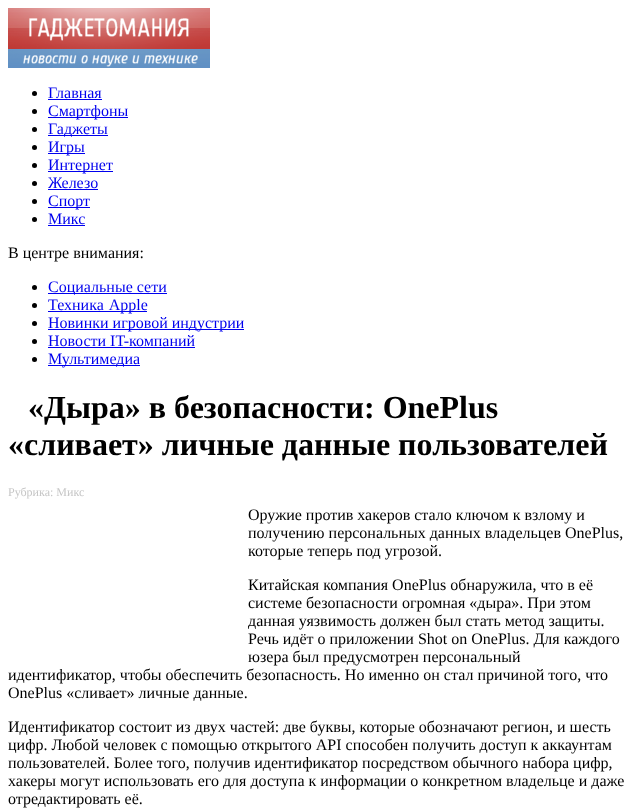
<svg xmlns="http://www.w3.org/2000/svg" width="638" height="810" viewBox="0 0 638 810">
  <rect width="100%" height="100%" fill="#ffffff"/>
  <image x="8" y="8" width="202" height="60" href="img1.png"/>
  <circle cx="34.5" cy="93.5" r="2.5" fill="#000000"/>
  <text x="48" y="98" font-family="Liberation Serif" font-size="16" fill="#0000ee">Главная</text>
  <rect x="48" y="99" width="54" height="1" fill="#0000ee"/>
  <circle cx="34.5" cy="111.5" r="2.5" fill="#000000"/>
  <rect x="48" y="117" width="80" height="1" fill="#0000ee"/>
  <text x="48" y="116" font-family="Liberation Serif" font-size="16" fill="#0000ee">Смартфоны</text>
  <circle cx="34.5" cy="129.5" r="2.5" fill="#000000"/>
  <rect x="48" y="135" width="60" height="1" fill="#0000ee"/>
  <text x="48" y="134" font-family="Liberation Serif" font-size="16" fill="#0000ee">Гаджеты</text>
  <circle cx="34.5" cy="147.5" r="2.5" fill="#000000"/>
  <rect x="48" y="153" width="37" height="1" fill="#0000ee"/>
  <text x="48" y="152" font-family="Liberation Serif" font-size="16" fill="#0000ee">Игры</text>
  <circle cx="34.5" cy="165.5" r="2.5" fill="#000000"/>
  <rect x="48" y="171" width="65" height="1" fill="#0000ee"/>
  <text x="48" y="170" font-family="Liberation Serif" font-size="16" fill="#0000ee">Интернет</text>
  <circle cx="34.5" cy="183.5" r="2.5" fill="#000000"/>
  <text x="48" y="188" font-family="Liberation Serif" font-size="16" fill="#0000ee">Железо</text>
  <rect x="48" y="189" width="50" height="1" fill="#0000ee"/>
  <circle cx="34.5" cy="201.5" r="2.5" fill="#000000"/>
  <rect x="48" y="207" width="42" height="1" fill="#0000ee"/>
  <text x="48" y="206" font-family="Liberation Serif" font-size="16" fill="#0000ee">Спорт</text>
  <circle cx="34.5" cy="219.5" r="2.5" fill="#000000"/>
  <text x="48" y="224" font-family="Liberation Serif" font-size="16" fill="#0000ee">Микс</text>
  <rect x="48" y="225" width="37" height="1" fill="#0000ee"/>
  <text x="8" y="258" font-family="Liberation Serif" font-size="16" fill="#000000">В центре внимания:</text>
  <circle cx="34.5" cy="287.5" r="2.5" fill="#000000"/>
  <rect x="48" y="293" width="119" height="1" fill="#0000ee"/>
  <text x="48" y="292" font-family="Liberation Serif" font-size="16" fill="#0000ee">Социальные сети</text>
  <circle cx="34.5" cy="305.5" r="2.5" fill="#000000"/>
  <rect x="48" y="311" width="99" height="1" fill="#0000ee"/>
  <text x="48" y="310" word-spacing="1" font-family="Liberation Serif" font-size="16" fill="#0000ee">Техника Apple</text>
  <circle cx="34.5" cy="323.5" r="2.5" fill="#000000"/>
  <rect x="48" y="329" width="196" height="1" fill="#0000ee"/>
  <text x="48" y="328" font-family="Liberation Serif" font-size="16" fill="#0000ee">Новинки игровой индустрии</text>
  <circle cx="34.5" cy="341.5" r="2.5" fill="#000000"/>
  <text x="48" y="346" font-family="Liberation Serif" font-size="16" fill="#0000ee">Новости IT-компаний</text>
  <rect x="48" y="347" width="147" height="1" fill="#0000ee"/>
  <circle cx="34.5" cy="359.5" r="2.5" fill="#000000"/>
  <rect x="48" y="365" width="92" height="1" fill="#0000ee"/>
  <text x="48" y="364" font-family="Liberation Serif" font-size="16" fill="#0000ee">Мультимедиа</text>
  <text x="28" y="418" font-family="Liberation Serif" font-size="32" font-weight="bold" fill="#000000">«Дыра» в безопасности: OnePlus</text>
  <text x="8" y="455" font-family="Liberation Serif" font-size="32" font-weight="bold" fill="#000000">«сливает» личные данные пользователей</text>
  <text x="8" y="496" font-family="Liberation Serif" font-size="12" fill="#c6c6c6">Рубрика: Микс</text>
  <text x="248" y="520" font-family="Liberation Serif" font-size="16" fill="#000000">Оружие против хакеров стало ключом к взлому и</text>
  <text x="248" y="538" font-family="Liberation Serif" font-size="16" fill="#000000">получению персональных данных владельцев OnePlus,</text>
  <text x="248" y="556" font-family="Liberation Serif" font-size="16" fill="#000000">которые теперь под угрозой.</text>
  <text x="248" y="590" font-family="Liberation Serif" font-size="16" fill="#000000">Китайская компания OnePlus обнаружила, что в её</text>
  <text x="248" y="608" font-family="Liberation Serif" font-size="16" fill="#000000">системе безопасности огромная «дыра». При этом</text>
  <text x="248" y="626" font-family="Liberation Serif" font-size="16" fill="#000000">данная уязвимость должен был стать метод защиты.</text>
  <text x="248" y="644" font-family="Liberation Serif" font-size="16" fill="#000000">Речь идёт о приложении Shot on OnePlus. Для каждого</text>
  <text x="248" y="662" font-family="Liberation Serif" font-size="16" fill="#000000">юзера был предусмотрен персональный</text>
  <text x="8" y="680" font-family="Liberation Serif" font-size="16" fill="#000000">идентификатор, чтобы обеспечить безопасность. Но именно он стал причиной того, что</text>
  <text x="8" y="698" font-family="Liberation Serif" font-size="16" fill="#000000">OnePlus «сливает» личные данные.</text>
  <text x="8" y="732" font-family="Liberation Serif" font-size="16" fill="#000000">Идентификатор состоит из двух частей: две буквы, которые обозначают регион, и шесть</text>
  <text x="8" y="750" font-family="Liberation Serif" font-size="16" fill="#000000">цифр. Любой человек с помощью открытого API способен получить доступ к аккаунтам</text>
  <text x="8" y="768" font-family="Liberation Serif" font-size="16" fill="#000000">пользователей. Более того, получив идентификатор посредством обычного набора цифр,</text>
  <text x="8" y="786" font-family="Liberation Serif" font-size="16" fill="#000000">хакеры могут использовать его для доступа к информации о конкретном владельце и даже</text>
  <text x="8" y="804" font-family="Liberation Serif" font-size="16" fill="#000000">отредактировать её.</text>
</svg>
